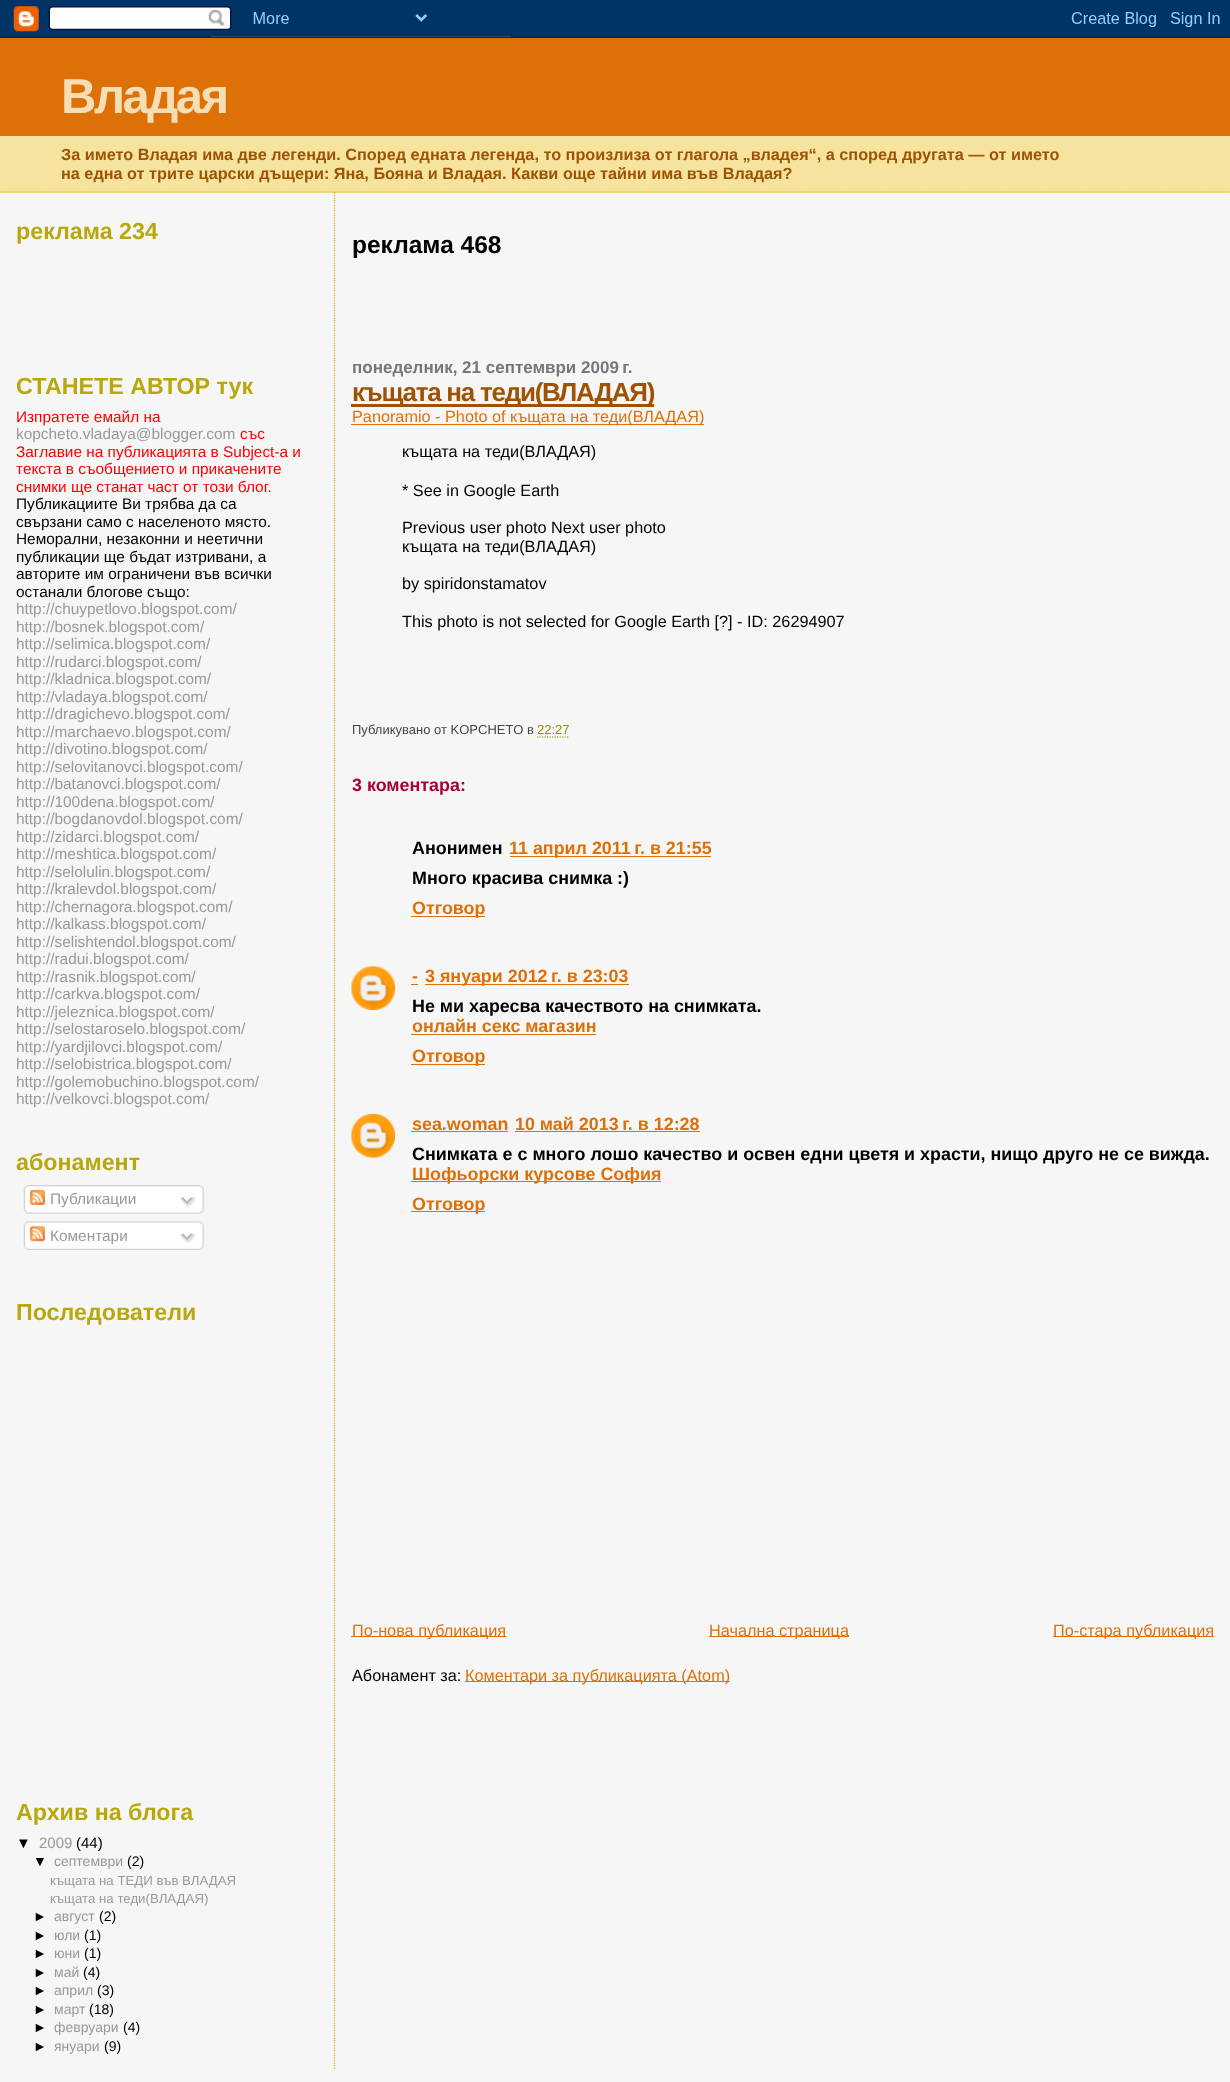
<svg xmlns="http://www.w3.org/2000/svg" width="1230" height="2082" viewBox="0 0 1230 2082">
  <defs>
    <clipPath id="clip1"><rect x="351" y="1620" width="863" height="19"/></clipPath>
  </defs>
  <rect width="100%" height="100%" fill="#f6f6f6"/>
  <image x="0" y="0" width="1230" height="38" href="img1.png"/>
  <rect x="0" y="136" width="1230" height="57" fill="#f5e39e"/>
  <path d="M0 192H1230" fill="none" stroke="#e0ad12" stroke-width="1.2" stroke-dasharray="1.25 1.25"/>
  <rect x="0" y="38" width="1230" height="98" fill="#de7008"/>
  <text x="61" y="113" font-family="Liberation Sans" font-size="49" font-weight="bold" letter-spacing="-2.5" fill="#f5deb3">Владая</text>
  <text x="61" y="160" font-family="Liberation Sans" font-size="16.25" font-weight="bold" fill="#9e5205">За името Владая има две легенди. Според едната легенда, то произлиза от глагола „владея“, а според другата — от името</text>
  <text x="61" y="179" font-family="Liberation Sans" font-size="16.25" font-weight="bold" fill="#9e5205">на една от трите царски дъщери: Яна, Бояна и Владая. Какви още тайни има във Владая?</text>
  <text x="16" y="239" font-family="Liberation Sans" font-size="23.25" font-weight="bold" fill="#b8a80d">реклама 234</text>
  <text x="16" y="394" font-family="Liberation Sans" font-size="23.25" font-weight="bold" fill="#b8a80d">СТАНЕТЕ АВТОР тук</text>
  <text x="16" y="422" font-family="Liberation Sans" font-size="15.4" fill="#ff0000">Изпратете емайл на</text>
  <text x="16" y="439" font-family="Liberation Sans" font-size="15.4" fill="#999999">kopcheto.vladaya@blogger.com</text>
  <text x="240" y="439" font-family="Liberation Sans" font-size="15.4" fill="#ff0000">със</text>
  <text x="16" y="457" font-family="Liberation Sans" font-size="15.4" fill="#ff0000">Заглавие на публикацията в Subject-а и</text>
  <text x="16" y="474" font-family="Liberation Sans" font-size="15.4" fill="#ff0000">текста в съобщението и прикачените</text>
  <text x="16" y="492" font-family="Liberation Sans" font-size="15.4" fill="#ff0000">снимки ще станат част от този блог.</text>
  <text x="16" y="509" font-family="Liberation Sans" font-size="15.4" fill="#000000">Публикациите Ви трябва да са</text>
  <text x="16" y="527" font-family="Liberation Sans" font-size="15.4" fill="#000000">свързани само с населеното място.</text>
  <text x="16" y="544" font-family="Liberation Sans" font-size="15.4" fill="#000000">Неморални, незаконни и неетични</text>
  <text x="16" y="562" font-family="Liberation Sans" font-size="15.4" fill="#000000">публикации ще бъдат изтривани, а</text>
  <text x="16" y="579" font-family="Liberation Sans" font-size="15.4" fill="#000000">авторите им ограничени във всички</text>
  <text x="16" y="597" font-family="Liberation Sans" font-size="15.4" fill="#000000">останали блогове също:</text>
  <text x="16" y="614" font-family="Liberation Sans" font-size="15.4" fill="#999999">http://chuypetlovo.blogspot.com/</text>
  <text x="16" y="632" font-family="Liberation Sans" font-size="15.4" fill="#999999">http://bosnek.blogspot.com/</text>
  <text x="16" y="649" font-family="Liberation Sans" font-size="15.4" fill="#999999">http://selimica.blogspot.com/</text>
  <text x="16" y="667" font-family="Liberation Sans" font-size="15.4" fill="#999999">http://rudarci.blogspot.com/</text>
  <text x="16" y="684" font-family="Liberation Sans" font-size="15.4" fill="#999999">http://kladnica.blogspot.com/</text>
  <text x="16" y="702" font-family="Liberation Sans" font-size="15.4" fill="#999999">http://vladaya.blogspot.com/</text>
  <text x="16" y="719" font-family="Liberation Sans" font-size="15.4" fill="#999999">http://dragichevo.blogspot.com/</text>
  <text x="16" y="737" font-family="Liberation Sans" font-size="15.4" fill="#999999">http://marchaevo.blogspot.com/</text>
  <text x="16" y="754" font-family="Liberation Sans" font-size="15.4" fill="#999999">http://divotino.blogspot.com/</text>
  <text x="16" y="772" font-family="Liberation Sans" font-size="15.4" fill="#999999">http://selovitanovci.blogspot.com/</text>
  <text x="16" y="789" font-family="Liberation Sans" font-size="15.4" fill="#999999">http://batanovci.blogspot.com/</text>
  <text x="16" y="807" font-family="Liberation Sans" font-size="15.4" fill="#999999">http://100dena.blogspot.com/</text>
  <text x="16" y="824" font-family="Liberation Sans" font-size="15.4" fill="#999999">http://bogdanovdol.blogspot.com/</text>
  <text x="16" y="842" font-family="Liberation Sans" font-size="15.4" fill="#999999">http://zidarci.blogspot.com/</text>
  <text x="16" y="859" font-family="Liberation Sans" font-size="15.4" fill="#999999">http://meshtica.blogspot.com/</text>
  <text x="16" y="877" font-family="Liberation Sans" font-size="15.4" fill="#999999">http://selolulin.blogspot.com/</text>
  <text x="16" y="894" font-family="Liberation Sans" font-size="15.4" fill="#999999">http://kralevdol.blogspot.com/</text>
  <text x="16" y="912" font-family="Liberation Sans" font-size="15.4" fill="#999999">http://chernagora.blogspot.com/</text>
  <text x="16" y="929" font-family="Liberation Sans" font-size="15.4" fill="#999999">http://kalkass.blogspot.com/</text>
  <text x="16" y="947" font-family="Liberation Sans" font-size="15.4" fill="#999999">http://selishtendol.blogspot.com/</text>
  <text x="16" y="964" font-family="Liberation Sans" font-size="15.4" fill="#999999">http://radui.blogspot.com/</text>
  <text x="16" y="982" font-family="Liberation Sans" font-size="15.4" fill="#999999">http://rasnik.blogspot.com/</text>
  <text x="16" y="999" font-family="Liberation Sans" font-size="15.4" fill="#999999">http://carkva.blogspot.com/</text>
  <text x="16" y="1017" font-family="Liberation Sans" font-size="15.4" fill="#999999">http://jeleznica.blogspot.com/</text>
  <text x="16" y="1034" font-family="Liberation Sans" font-size="15.4" fill="#999999">http://selostaroselo.blogspot.com/</text>
  <text x="16" y="1052" font-family="Liberation Sans" font-size="15.4" fill="#999999">http://yardjilovci.blogspot.com/</text>
  <text x="16" y="1069" font-family="Liberation Sans" font-size="15.4" fill="#999999">http://selobistrica.blogspot.com/</text>
  <text x="16" y="1087" font-family="Liberation Sans" font-size="15.4" fill="#999999">http://golemobuchino.blogspot.com/</text>
  <text x="16" y="1104" font-family="Liberation Sans" font-size="15.4" fill="#999999">http://velkovci.blogspot.com/</text>
  <text x="16" y="1170" font-family="Liberation Sans" font-size="23.25" font-weight="bold" fill="#b8a80d">абонамент</text>
  <image x="23" y="1185" width="181" height="25" href="img2.png"/>
  <image x="30" y="1190" width="15" height="15" href="img3.png"/>
  <text x="50" y="1204" font-family="Liberation Sans" font-size="15.4" fill="#999999">Публикации</text>
  <image x="180" y="1196" width="16" height="12" href="img4.png"/>
  <image x="24" y="1210" width="180" height="4" href="img5.png"/>
  <image x="23" y="1221" width="181" height="26" href="img6.png"/>
  <image x="30" y="1226" width="15" height="16" href="img7.png"/>
  <text x="50" y="1241" font-family="Liberation Sans" font-size="15.4" fill="#999999">Коментари</text>
  <image x="180" y="1233" width="16" height="11" href="img8.png"/>
  <image x="24" y="1246" width="180" height="4" href="img9.png"/>
  <text x="16" y="1320" font-family="Liberation Sans" font-size="23.25" font-weight="bold" fill="#b8a80d">Последователи</text>
  <text x="16" y="1820" font-family="Liberation Sans" font-size="23.25" font-weight="bold" fill="#b8a80d">Архив на блога</text>
  <text x="16" y="1848" font-family="Liberation Sans" font-size="15" fill="#000000">▼</text>
  <text x="39" y="1848" font-family="Liberation Sans" font-size="15" fill="#999999">2009</text>
  <text x="76" y="1848" font-family="Liberation Sans" font-size="15" fill="#000000">(44)</text>
  <text x="33" y="1866" font-family="Liberation Sans" font-size="14" fill="#000000">▼</text>
  <text x="54" y="1866" font-family="Liberation Sans" font-size="14" fill="#999999">септември</text>
  <text x="127" y="1866" font-family="Liberation Sans" font-size="14" fill="#000000">(2)</text>
  <text x="50" y="1885" font-family="Liberation Sans" font-size="13.25" fill="#999999">къщата на ТЕДИ във ВЛАДАЯ</text>
  <text x="50" y="1903" font-family="Liberation Sans" font-size="13.25" fill="#999999">къщата на теди(ВЛАДАЯ)</text>
  <text x="33" y="1921" font-family="Liberation Sans" font-size="14" fill="#000000">►</text>
  <text x="54" y="1921" font-family="Liberation Sans" font-size="14" fill="#999999">август</text>
  <text x="99" y="1921" font-family="Liberation Sans" font-size="14" fill="#000000">(2)</text>
  <text x="33" y="1940" font-family="Liberation Sans" font-size="14" fill="#000000">►</text>
  <text x="54" y="1940" font-family="Liberation Sans" font-size="14" fill="#999999">юли</text>
  <text x="84" y="1940" font-family="Liberation Sans" font-size="14" fill="#000000">(1)</text>
  <text x="33" y="1958" font-family="Liberation Sans" font-size="14" fill="#000000">►</text>
  <text x="54" y="1958" font-family="Liberation Sans" font-size="14" fill="#999999">юни</text>
  <text x="84" y="1958" font-family="Liberation Sans" font-size="14" fill="#000000">(1)</text>
  <text x="33" y="1977" font-family="Liberation Sans" font-size="14" fill="#000000">►</text>
  <text x="54" y="1977" font-family="Liberation Sans" font-size="14" fill="#999999">май</text>
  <text x="83" y="1977" font-family="Liberation Sans" font-size="14" fill="#000000">(4)</text>
  <text x="33" y="1995" font-family="Liberation Sans" font-size="14" fill="#000000">►</text>
  <text x="54" y="1995" font-family="Liberation Sans" font-size="14" fill="#999999">април</text>
  <text x="97" y="1995" font-family="Liberation Sans" font-size="14" fill="#000000">(3)</text>
  <text x="33" y="2014" font-family="Liberation Sans" font-size="14" fill="#000000">►</text>
  <text x="54" y="2014" font-family="Liberation Sans" font-size="14" fill="#999999">март</text>
  <text x="89" y="2014" font-family="Liberation Sans" font-size="14" fill="#000000">(18)</text>
  <text x="33" y="2032" font-family="Liberation Sans" font-size="14" fill="#000000">►</text>
  <text x="54" y="2032" font-family="Liberation Sans" font-size="14" fill="#999999">февруари</text>
  <text x="123" y="2032" font-family="Liberation Sans" font-size="14" fill="#000000">(4)</text>
  <text x="33" y="2051" font-family="Liberation Sans" font-size="14" fill="#000000">►</text>
  <text x="54" y="2051" font-family="Liberation Sans" font-size="14" fill="#999999">януари</text>
  <text x="104" y="2051" font-family="Liberation Sans" font-size="14" fill="#000000">(9)</text>
  <path d="M334.5 192.5V2070" fill="none" stroke="#e0ad12" stroke-width="1.2" stroke-dasharray="1.25 1.25"/>
  <text x="352" y="253" font-family="Liberation Sans" font-size="24.5" font-weight="bold" fill="#000000">реклама 468</text>
  <text x="352" y="373" font-family="Liberation Sans" font-size="17" font-weight="bold" fill="#777777">понеделник, 21 септември 2009 г.</text>
  <rect x="351" y="404" width="303" height="3" fill="#9e5205"/>
  <text x="352" y="401" font-family="Liberation Sans" font-size="26" font-weight="bold" letter-spacing="-1.25" fill="#9e5205">къщата на теди(ВЛАДАЯ)</text>
  <rect x="351" y="424" width="353" height="1" fill="#de7008"/>
  <text x="352" y="422" font-family="Liberation Sans" font-size="16.25" fill="#de7008">Panoramio - Photo of къщата на теди(ВЛАДАЯ)</text>
  <text x="402" y="457" font-family="Liberation Sans" font-size="16.25" fill="#000000">къщата на теди(ВЛАДАЯ)</text>
  <text x="402" y="496" font-family="Liberation Sans" font-size="16.25" fill="#000000">* See in Google Earth</text>
  <text x="402" y="533" font-family="Liberation Sans" font-size="16.25" fill="#000000">Previous user photo Next user photo</text>
  <text x="402" y="552" font-family="Liberation Sans" font-size="16.25" fill="#000000">къщата на теди(ВЛАДАЯ)</text>
  <text x="402" y="589" font-family="Liberation Sans" font-size="16.25" fill="#000000">by spiridonstamatov</text>
  <text x="402" y="627" font-family="Liberation Sans" font-size="16.25" fill="#000000">This photo is not selected for Google Earth [?] - ID: 26294907</text>
  <text x="352" y="734" font-family="Liberation Sans" font-size="13" fill="#444444">Публикувано от KOPCHETO в</text>
  <text x="537" y="734" font-family="Liberation Sans" font-size="13" fill="#968a0a">22:27</text>
  <path d="M537 737H569.5" fill="none" stroke="#968a0a" stroke-width="1.2" stroke-dasharray="1.25 1.25"/>
  <text x="352" y="791" font-family="Liberation Sans" font-size="17.9" font-weight="bold" fill="#aa0033">3 коментара:</text>
  <text x="412" y="854" font-family="Liberation Sans" font-size="17.9" font-weight="bold" fill="#000000">Анонимен</text>
  <rect x="510" y="856" width="201" height="1" fill="#de7008"/>
  <text x="509" y="854" font-family="Liberation Sans" font-size="17.9" font-weight="bold" fill="#de7008">11 април 2011 г. в 21:55</text>
  <text x="412" y="884" font-family="Liberation Sans" font-size="17.9" font-weight="bold" fill="#000000">Много красива снимка :)</text>
  <rect x="411" y="916" width="74" height="1" fill="#de7008"/>
  <text x="412" y="914" font-family="Liberation Sans" font-size="17.9" font-weight="bold" fill="#de7008">Отговор</text>
  <image x="351" y="966" width="44" height="44" href="img10.png"/>
  <text x="412" y="982" font-family="Liberation Sans" font-size="17.9" font-weight="bold" fill="#de7008">-</text>
  <rect x="411" y="984" width="7" height="1" fill="#de7008"/>
  <rect x="425" y="984" width="204" height="1" fill="#de7008"/>
  <text x="425" y="982" font-family="Liberation Sans" font-size="17.9" font-weight="bold" fill="#de7008">3 януари 2012 г. в 23:03</text>
  <text x="412" y="1012" font-family="Liberation Sans" font-size="17.9" font-weight="bold" fill="#000000">Не ми харесва качеството на снимката.</text>
  <text x="412" y="1032" font-family="Liberation Sans" font-size="17.9" font-weight="bold" fill="#de7008">онлайн секс магазин</text>
  <rect x="411" y="1034" width="185" height="1" fill="#de7008"/>
  <rect x="411" y="1064" width="74" height="1" fill="#de7008"/>
  <text x="412" y="1062" font-family="Liberation Sans" font-size="17.9" font-weight="bold" fill="#de7008">Отговор</text>
  <image x="351" y="1113" width="44" height="45" href="img11.png"/>
  <text x="412" y="1130" font-family="Liberation Sans" font-size="17.9" font-weight="bold" fill="#de7008">sea.woman</text>
  <rect x="411" y="1131" width="97" height="1" fill="#de7008"/>
  <text x="515" y="1130" font-family="Liberation Sans" font-size="17.9" font-weight="bold" fill="#de7008">10 май 2013 г. в 12:28</text>
  <rect x="515" y="1131" width="185" height="1" fill="#de7008"/>
  <text x="412" y="1160" font-family="Liberation Sans" font-size="17.9" font-weight="bold" fill="#000000">Снимката е с много лошо качество и освен едни цветя и храсти, нищо друго не се вижда.</text>
  <rect x="411" y="1181" width="250" height="1" fill="#de7008"/>
  <text x="412" y="1180" font-family="Liberation Sans" font-size="17.9" font-weight="bold" fill="#de7008">Шофьорски курсове София</text>
  <rect x="411" y="1211" width="74" height="1" fill="#de7008"/>
  <text x="412" y="1210" font-family="Liberation Sans" font-size="17.9" font-weight="bold" fill="#de7008">Отговор</text>
  <rect x="351" y="1636" width="155" height="1" fill="#de7008"/>
  <g clip-path="url(#clip1)">
    <text x="352" y="1636" font-family="Liberation Sans" font-size="16.25" fill="#de7008">По-нова публикация</text>
  </g>
  <rect x="709" y="1636" width="140" height="1" fill="#de7008"/>
  <g clip-path="url(#clip1)">
    <text x="709" y="1636" font-family="Liberation Sans" font-size="16.25" fill="#de7008">Начална страница</text>
  </g>
  <rect x="1053" y="1636" width="161" height="1" fill="#de7008"/>
  <g clip-path="url(#clip1)">
    <text x="1053" y="1636" font-family="Liberation Sans" font-size="16.25" fill="#de7008">По-стара публикация</text>
  </g>
  <text x="352" y="1681" font-family="Liberation Sans" font-size="16.25" fill="#000000">Абонамент за:</text>
  <rect x="465" y="1681" width="265" height="1" fill="#de7008"/>
  <text x="465" y="1681" font-family="Liberation Sans" font-size="16.25" fill="#de7008">Коментари за публикацията (Atom)</text>
</svg>
